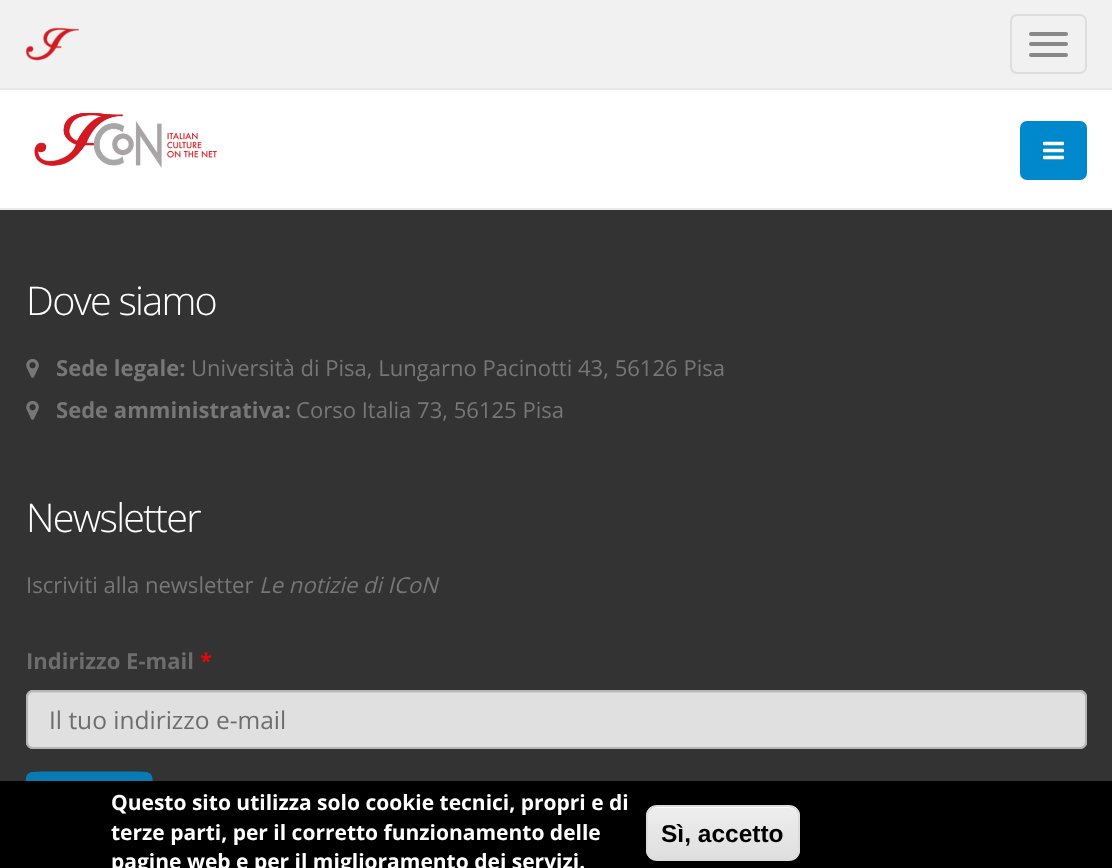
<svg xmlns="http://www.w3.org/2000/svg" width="1112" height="868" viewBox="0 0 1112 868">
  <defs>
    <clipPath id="clip1"><rect x="646" y="805" width="154" height="56" rx="11"/></clipPath>
    <linearGradient id="g1" gradientUnits="userSpaceOnUse" x1="723" y1="807" x2="723" y2="859"><stop offset="0.05" stop-color="#ededed"/><stop offset="1" stop-color="#dfdfdf"/></linearGradient>
  </defs>
  <rect width="100%" height="100%" fill="#333333"/>
  <rect x="0" y="0" width="1112" height="88" fill="#f1f1f1"/>
  <rect x="0" y="88" width="1112" height="2" fill="#e7e7e7"/>
  <image x="26" y="27" width="53" height="34" href="img1.png"/>
  <rect x="1011" y="15" width="75" height="58" rx="6" fill="none" stroke="#dddddd" stroke-width="2"/>
  <rect x="1029" y="32" width="39" height="4" rx="2" fill="#888888"/>
  <rect x="1029" y="42" width="39" height="4" rx="2" fill="#888888"/>
  <rect x="1029" y="53" width="39" height="4" rx="2" fill="#888888"/>
  <rect x="0" y="90" width="1112" height="118" fill="#ffffff"/>
  <rect x="0" y="208" width="1112" height="2" fill="#e9e9e9"/>
  <image x="34" y="112" width="183" height="56" href="img2.png"/>
  <rect x="1020" y="121" width="67" height="59" rx="7" fill="#0088cc"/>
  <image x="1043" y="141" width="21" height="19" href="img3.png"/>
  <text x="26" y="315" font-family="Open Sans" font-size="39.5" font-weight="300" letter-spacing="-1.75" fill="#ffffff">Dove siamo</text>
  <image x="26" y="358" width="13" height="20" href="img4.png"/>
  <text x="56" y="376" font-family="Open Sans" font-size="22.05" font-weight="bold" fill="#777777">Sede legale:</text>
  <text x="191" y="376" font-family="Open Sans" font-size="22.05" fill="#777777">Università di Pisa, Lungarno Pacinotti 43, 56126 Pisa</text>
  <image x="26" y="400" width="13" height="20" href="img4.png"/>
  <text x="56" y="418" font-family="Open Sans" font-size="22.05" font-weight="bold" fill="#777777">Sede amministrativa:</text>
  <text x="296" y="418" font-family="Open Sans" font-size="22.05" fill="#777777">Corso Italia 73, 56125 Pisa</text>
  <text x="26" y="532" font-family="Open Sans" font-size="39.5" font-weight="300" letter-spacing="-1.75" fill="#ffffff">Newsletter</text>
  <text x="26" y="593" font-family="Open Sans" font-size="22.05" fill="#777777">Iscriviti alla newsletter</text>
  <text x="259" y="593" font-family="Open Sans" font-size="22.05" font-style="italic" fill="#777777">Le notizie di ICoN</text>
  <text x="26" y="669" font-family="Open Sans" font-size="22.05" font-weight="bold" fill="#6d6d6d">Indirizzo E-mail</text>
  <text x="200" y="669" font-family="Open Sans" font-size="22.05" font-weight="bold" fill="#e00808">*</text>
  <rect x="26" y="690" width="1061" height="59" rx="7" fill="#e0e0e0"/>
  <path d="M33 693H1080C1083 693 1085 695 1085 698V696C1085 693 1083 691 1080 691H33C30 691 28 693 28 696V698C28 695 30 693 33 693Z" fill="#d0d0d0"/>
  <rect x="27" y="691" width="1059" height="57" rx="6" fill="none" stroke="#b5b5b5" stroke-width="2"/>
  <text x="49" y="729" font-family="Open Sans" font-size="24.5" fill="#6d6d6d">Il tuo indirizzo e-mail</text>
  <rect x="26" y="772" width="126" height="59" rx="7" fill="#087bb5"/>
  <path d="M29 828.5C26 825.5 27 820 27 816.5V801.5C27 770 21.5 772.5 52 772.5H126.5C157 772.5 151.5 770 151.5 801.5V816.5C151.5 820 152.5 825.5 149.5 828.5" fill="none" stroke="#087bb5" stroke-width="1.8"/>
  <rect x="0" y="781" width="1112" height="87" fill="#000000"/>
  <text x="111" y="810" font-family="Open Sans" font-size="21" font-weight="bold" fill="#ffffff">Questo sito utilizza solo cookie tecnici, propri e di</text>
  <text x="111" y="840" font-family="Open Sans" font-size="21" font-weight="bold" fill="#ffffff">terze parti, per il corretto funzionamento delle</text>
  <text x="111" y="869" font-family="Open Sans" font-size="21" font-weight="bold" fill="#ffffff">pagine web e per il miglioramento dei servizi.</text>
  <g clip-path="url(#clip1)">
    <rect x="646" y="807" width="154" height="52" fill="url(#g1)"/>
  </g>
  <path d="M656 808H789C794 808 798 812 798 817C798 802 775 807 767 807H679C671 807 648 802 648 817C648 812 651 808 656 808Z" fill="#ffffff"/>
  <rect x="647" y="806" width="152" height="54" rx="10" fill="none" stroke="#dcdcdc" stroke-width="2"/>
  <text x="661" y="842" font-family="Liberation Sans" font-size="24.5" font-weight="bold" fill="#000000">Sì, accetto</text>
</svg>
